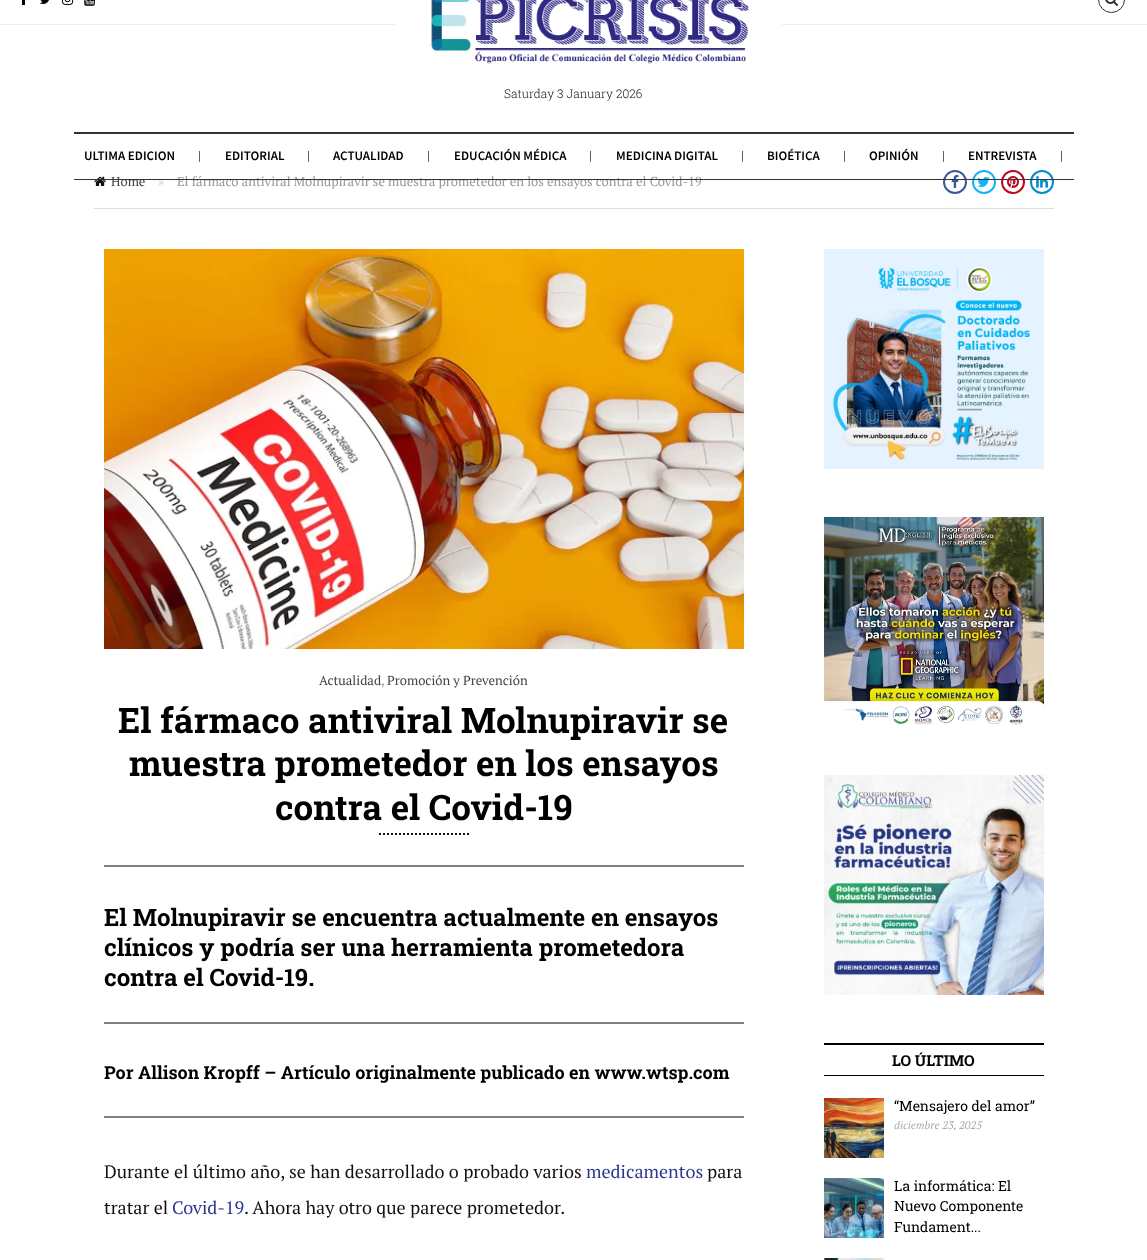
<svg xmlns="http://www.w3.org/2000/svg" width="1147" height="1260" viewBox="0 0 1147 1260">
  <rect width="100%" height="100%" fill="#ffffff"/>
  <rect x="0" y="24" width="1147" height="1" fill="#eeeeee"/>
  <rect x="22" y="0" width="3" height="5" fill="#000000"/>
  <image x="39" y="0" width="10" height="4" href="img1.png"/>
  <image x="62" y="0" width="12" height="5" href="img2.png"/>
  <image x="84" y="0" width="11" height="6" href="img3.png"/>
  <circle cx="1111.5" cy="-0.5" r="13" fill="none" stroke="#333333"/>
  <image x="1105" y="0" width="13" height="6" href="img4.png"/>
  <rect x="395" y="24" width="387" height="1" fill="#ffffff"/>
  <image x="431" y="0" width="318" height="64" href="img5.png"/>
  <text x="504" y="98" font-family="Roboto Slab" font-size="12" font-weight="300" fill="#111111">Saturday 3 January 2026</text>
  <rect x="74" y="132" width="1000" height="2" fill="#333333"/>
  <image x="94" y="176" width="12" height="10" href="img6.png"/>
  <text x="111" y="186" font-family="PT Serif" font-size="13" fill="#444444">Home</text>
  <text x="158" y="186" font-family="PT Serif" font-size="13" fill="#cccccc">»</text>
  <text x="177" y="186" font-family="PT Serif" font-size="13" fill="#999999">El fármaco antiviral Molnupiravir se muestra prometedor en los ensayos contra el Covid-19</text>
  <circle cx="955" cy="182" r="11" fill="none" stroke="#3b5998" stroke-width="2"/>
  <image x="951" y="175" width="8" height="13" href="img7.png"/>
  <circle cx="984" cy="182" r="11" fill="none" stroke="#12b3f9" stroke-width="2"/>
  <image x="977" y="177" width="13" height="10" href="img8.png"/>
  <circle cx="1013" cy="182" r="11" fill="none" stroke="#bd081c" stroke-width="2"/>
  <image x="1007" y="176" width="12" height="12" href="img9.png"/>
  <circle cx="1042" cy="182" r="11" fill="none" stroke="#008cc9" stroke-width="2"/>
  <image x="1036" y="176" width="12" height="12" href="img10.png"/>
  <rect x="74" y="179" width="1000" height="1" fill="#333333"/>
  <text x="84" y="160" font-family="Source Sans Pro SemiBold" font-size="13" font-weight="600" fill="#000000">ULTIMA EDICION</text>
  <text x="198" y="160" font-family="PT Serif" font-size="13" fill="#111111">|</text>
  <text x="225" y="160" font-family="Source Sans Pro SemiBold" font-size="13" font-weight="600" fill="#000000">EDITORIAL</text>
  <text x="307" y="160" font-family="PT Serif" font-size="13" fill="#111111">|</text>
  <text x="333" y="160" font-family="Source Sans Pro SemiBold" font-size="13" font-weight="600" fill="#000000">ACTUALIDAD</text>
  <text x="427" y="160" font-family="PT Serif" font-size="13" fill="#111111">|</text>
  <text x="454" y="160" font-family="Source Sans Pro SemiBold" font-size="13" font-weight="600" fill="#000000">EDUCACIÓN MÉDICA</text>
  <text x="589" y="160" font-family="PT Serif" font-size="13" fill="#111111">|</text>
  <text x="616" y="160" font-family="Source Sans Pro SemiBold" font-size="13" font-weight="600" fill="#000000">MEDICINA DIGITAL</text>
  <text x="741" y="160" font-family="PT Serif" font-size="13" fill="#111111">|</text>
  <text x="767" y="160" font-family="Source Sans Pro SemiBold" font-size="13" font-weight="600" fill="#000000">BIOÉTICA</text>
  <text x="843" y="160" font-family="PT Serif" font-size="13" fill="#111111">|</text>
  <text x="869" y="160" font-family="Source Sans Pro SemiBold" font-size="13" font-weight="600" fill="#000000">OPINIÓN</text>
  <text x="942" y="160" font-family="PT Serif" font-size="13" fill="#111111">|</text>
  <text x="968" y="160" font-family="Source Sans Pro SemiBold" font-size="13" font-weight="600" fill="#000000">ENTREVISTA</text>
  <text x="1060" y="160" font-family="PT Serif" font-size="13" fill="#111111">|</text>
  <rect x="94" y="208" width="960" height="1" fill="#dddddd"/>
  <image x="104" y="249" width="640" height="400" href="img11.png"/>
  <text x="319" y="685" font-family="PT Serif" font-size="13" fill="#444444">Actualidad</text>
  <text x="381" y="685" font-family="PT Serif" font-size="13" fill="#999999">,</text>
  <text x="387" y="685" font-family="PT Serif" font-size="13" fill="#444444">Promoción y Prevención</text>
  <text x="118" y="733" font-family="Roboto Slab" font-size="35" font-weight="bold" fill="#000000">El fármaco antiviral Molnupiravir se</text>
  <text x="129" y="776" font-family="Roboto Slab" font-size="35" font-weight="bold" fill="#000000">muestra prometedor en los ensayos</text>
  <text x="275" y="820" font-family="Roboto Slab" font-size="35" font-weight="bold" fill="#000000">contra el Covid-19</text>
  <path d="M379 834H469" fill="none" stroke="#111111" stroke-width="2" stroke-dasharray="2 2"/>
  <rect x="104" y="865" width="640" height="2" fill="#808080"/>
  <text x="104" y="926" font-family="Roboto Slab" font-size="24" font-weight="bold" fill="#000000">El Molnupiravir se encuentra actualmente en ensayos</text>
  <text x="104" y="956" font-family="Roboto Slab" font-size="24" font-weight="bold" fill="#000000">clínicos y podría ser una herramienta prometedora</text>
  <text x="104" y="986" font-family="Roboto Slab" font-size="24" font-weight="bold" fill="#000000">contra el Covid-19.</text>
  <rect x="104" y="1022" width="640" height="2" fill="#808080"/>
  <text x="104" y="1079" font-family="Roboto Slab" font-size="18" font-weight="bold" fill="#000000">Por Allison Kropff – Artículo originalmente publicado en www.wtsp.com</text>
  <rect x="104" y="1116" width="640" height="2" fill="#808080"/>
  <text x="104" y="1178" font-family="PT Serif" font-size="18" fill="#111111">Durante el último año, se han desarrollado o probado varios</text>
  <text x="586" y="1178" font-family="PT Serif" font-size="18" fill="#2d3891">medicamentos</text>
  <text x="707" y="1178" font-family="PT Serif" font-size="18" fill="#111111">para</text>
  <text x="104" y="1214" font-family="PT Serif" font-size="18" fill="#111111">tratar el</text>
  <text x="172" y="1214" font-family="PT Serif" font-size="18" fill="#2d3891">Covid-19</text>
  <text x="244" y="1214" font-family="PT Serif" font-size="18" fill="#111111">. Ahora hay otro que parece prometedor.</text>
  <image x="824" y="249" width="220" height="220" href="img12.png"/>
  <image x="824" y="517" width="220" height="208" href="img13.png"/>
  <image x="824" y="775" width="220" height="220" href="img14.png"/>
  <rect x="824" y="1043" width="220" height="2" fill="#000000"/>
  <rect x="824" y="1075" width="220" height="1" fill="#000000"/>
  <text x="892" y="1066" font-family="Roboto Slab" font-size="15" font-weight="bold" fill="#000000">LO ÚLTIMO</text>
  <image x="824" y="1098" width="60" height="60" href="img15.png"/>
  <text x="894" y="1111" font-family="Roboto Slab" font-size="14" fill="#000000">“Mensajero del amor”</text>
  <text x="894" y="1129" font-family="PT Serif" font-size="11" font-style="italic" fill="#aaaaaa">diciembre 23, 2025</text>
  <image x="824" y="1178" width="60" height="60" href="img16.png"/>
  <text x="894" y="1191" font-family="Roboto Slab" font-size="14" fill="#000000">La informática: El</text>
  <text x="894" y="1211" font-family="Roboto Slab" font-size="14" fill="#000000">Nuevo Componente</text>
  <text x="894" y="1232" font-family="Roboto Slab" font-size="14" fill="#000000">Fundament...</text>
  <image x="824" y="1258" width="60" height="2" href="img17.png"/>
</svg>
